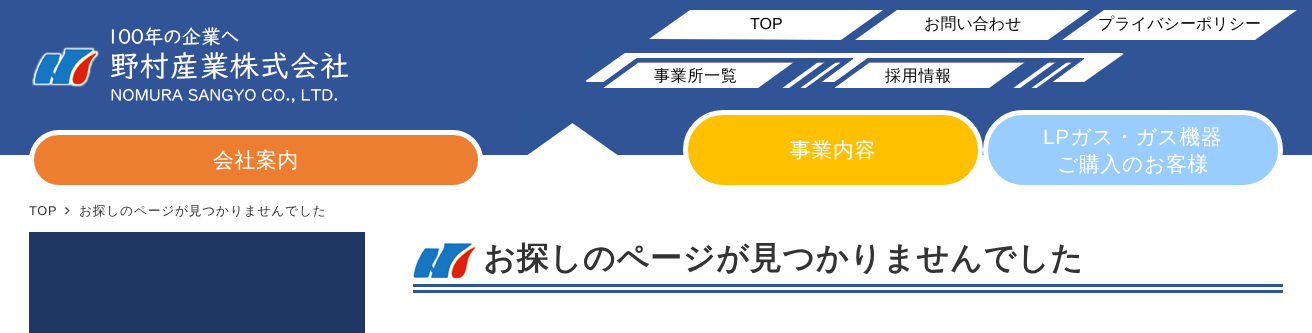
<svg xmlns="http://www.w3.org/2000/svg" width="1312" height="333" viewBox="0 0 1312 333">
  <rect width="100%" height="100%" fill="#ffffff"/>
  <image x="0" y="0" width="1312" height="155" href="img1.png"/>
  <image x="32" y="27" width="316" height="76" href="img2.png"/>
  <path d="M649 39L690 10H883L841 40Z" fill="#ffffff"/>
  <text x="750" y="29" font-family="Liberation Sans" font-size="16" fill="#000000">TOP</text>
  <path d="M1090 10L1048 40H855L897 10Z" fill="#ffffff"/>
  <text x="924" y="29" font-family="WenQuanYi Zen Hei" font-size="16" font-weight="500" fill="#000000">お問い合わせ</text>
  <path d="M1297 10L1255 40H1062L1104 10Z" fill="#ffffff"/>
  <text x="1098" y="29" font-family="WenQuanYi Zen Hei" font-size="16" font-weight="500" fill="#000000">プライバシーポリシー</text>
  <image x="585" y="53" width="539" height="29" href="img3.png"/>
  <image x="603" y="58" width="250" height="30" href="img4.png"/>
  <text x="654" y="81" font-family="WenQuanYi Zen Hei" font-size="16" font-weight="500" letter-spacing="0.75" fill="#000000">事業所一覧</text>
  <image x="834" y="58" width="250" height="30" href="img5.png"/>
  <text x="885" y="81" font-family="WenQuanYi Zen Hei" font-size="16" font-weight="500" letter-spacing="0.75" fill="#000000">採用情報</text>
  <rect x="31.5" y="132.5" width="449" height="55" rx="27.5" fill="#ed7d31" stroke="#ffffff" stroke-width="5"/>
  <text x="213" y="167" font-family="WenQuanYi Zen Hei" font-size="20.75" font-weight="500" letter-spacing="0.75" fill="#ffffff">会社案内</text>
  <rect x="685.5" y="112.5" width="295" height="75" rx="37.5" fill="#ffc000" stroke="#ffffff" stroke-width="5"/>
  <text x="790" y="157" font-family="WenQuanYi Zen Hei" font-size="20.75" font-weight="500" letter-spacing="0.75" fill="#ffffff">事業内容</text>
  <rect x="985.5" y="112.5" width="295" height="75" rx="37.5" fill="#99ccff" stroke="#ffffff" stroke-width="5"/>
  <text x="1043" y="144" font-family="Liberation Sans" font-size="20.75" letter-spacing="0.75" fill="#ffffff">LP</text>
  <text x="1070" y="144" font-family="WenQuanYi Zen Hei" font-size="20.75" font-weight="500" letter-spacing="0.75" fill="#ffffff">ガス・ガス機器</text>
  <text x="1057" y="171" font-family="WenQuanYi Zen Hei" font-size="20.75" font-weight="500" letter-spacing="0.75" fill="#ffffff">ご購入のお客様</text>
  <text x="29" y="215" font-family="Liberation Sans" font-size="12.75" letter-spacing="0.75" fill="#333333">TOP</text>
  <path d="M66 207L69.5 210.5L69 211.5L65 208Z" fill="#333333"/>
  <path d="M69 210L69.5 210.5L66 214.5L65 213.5Z" fill="#333333"/>
  <text x="79" y="215" font-family="WenQuanYi Zen Hei" font-size="12.75" font-weight="500" letter-spacing="0.75" fill="#333333">お探しのページが見つかりませんでした</text>
  <rect x="29" y="232" width="336" height="101" fill="#203764"/>
  <image x="413" y="243" width="63" height="36" href="img6.png"/>
  <rect x="413" y="284" width="870" height="3" fill="#305496"/>
  <rect x="413" y="290" width="870" height="3" fill="#305496"/>
  <text x="483" y="269" font-family="WenQuanYi Zen Hei" font-size="32" font-weight="bold" letter-spacing="0.75" fill="#333333">お探しのページが見つかりませんでした</text>
</svg>
